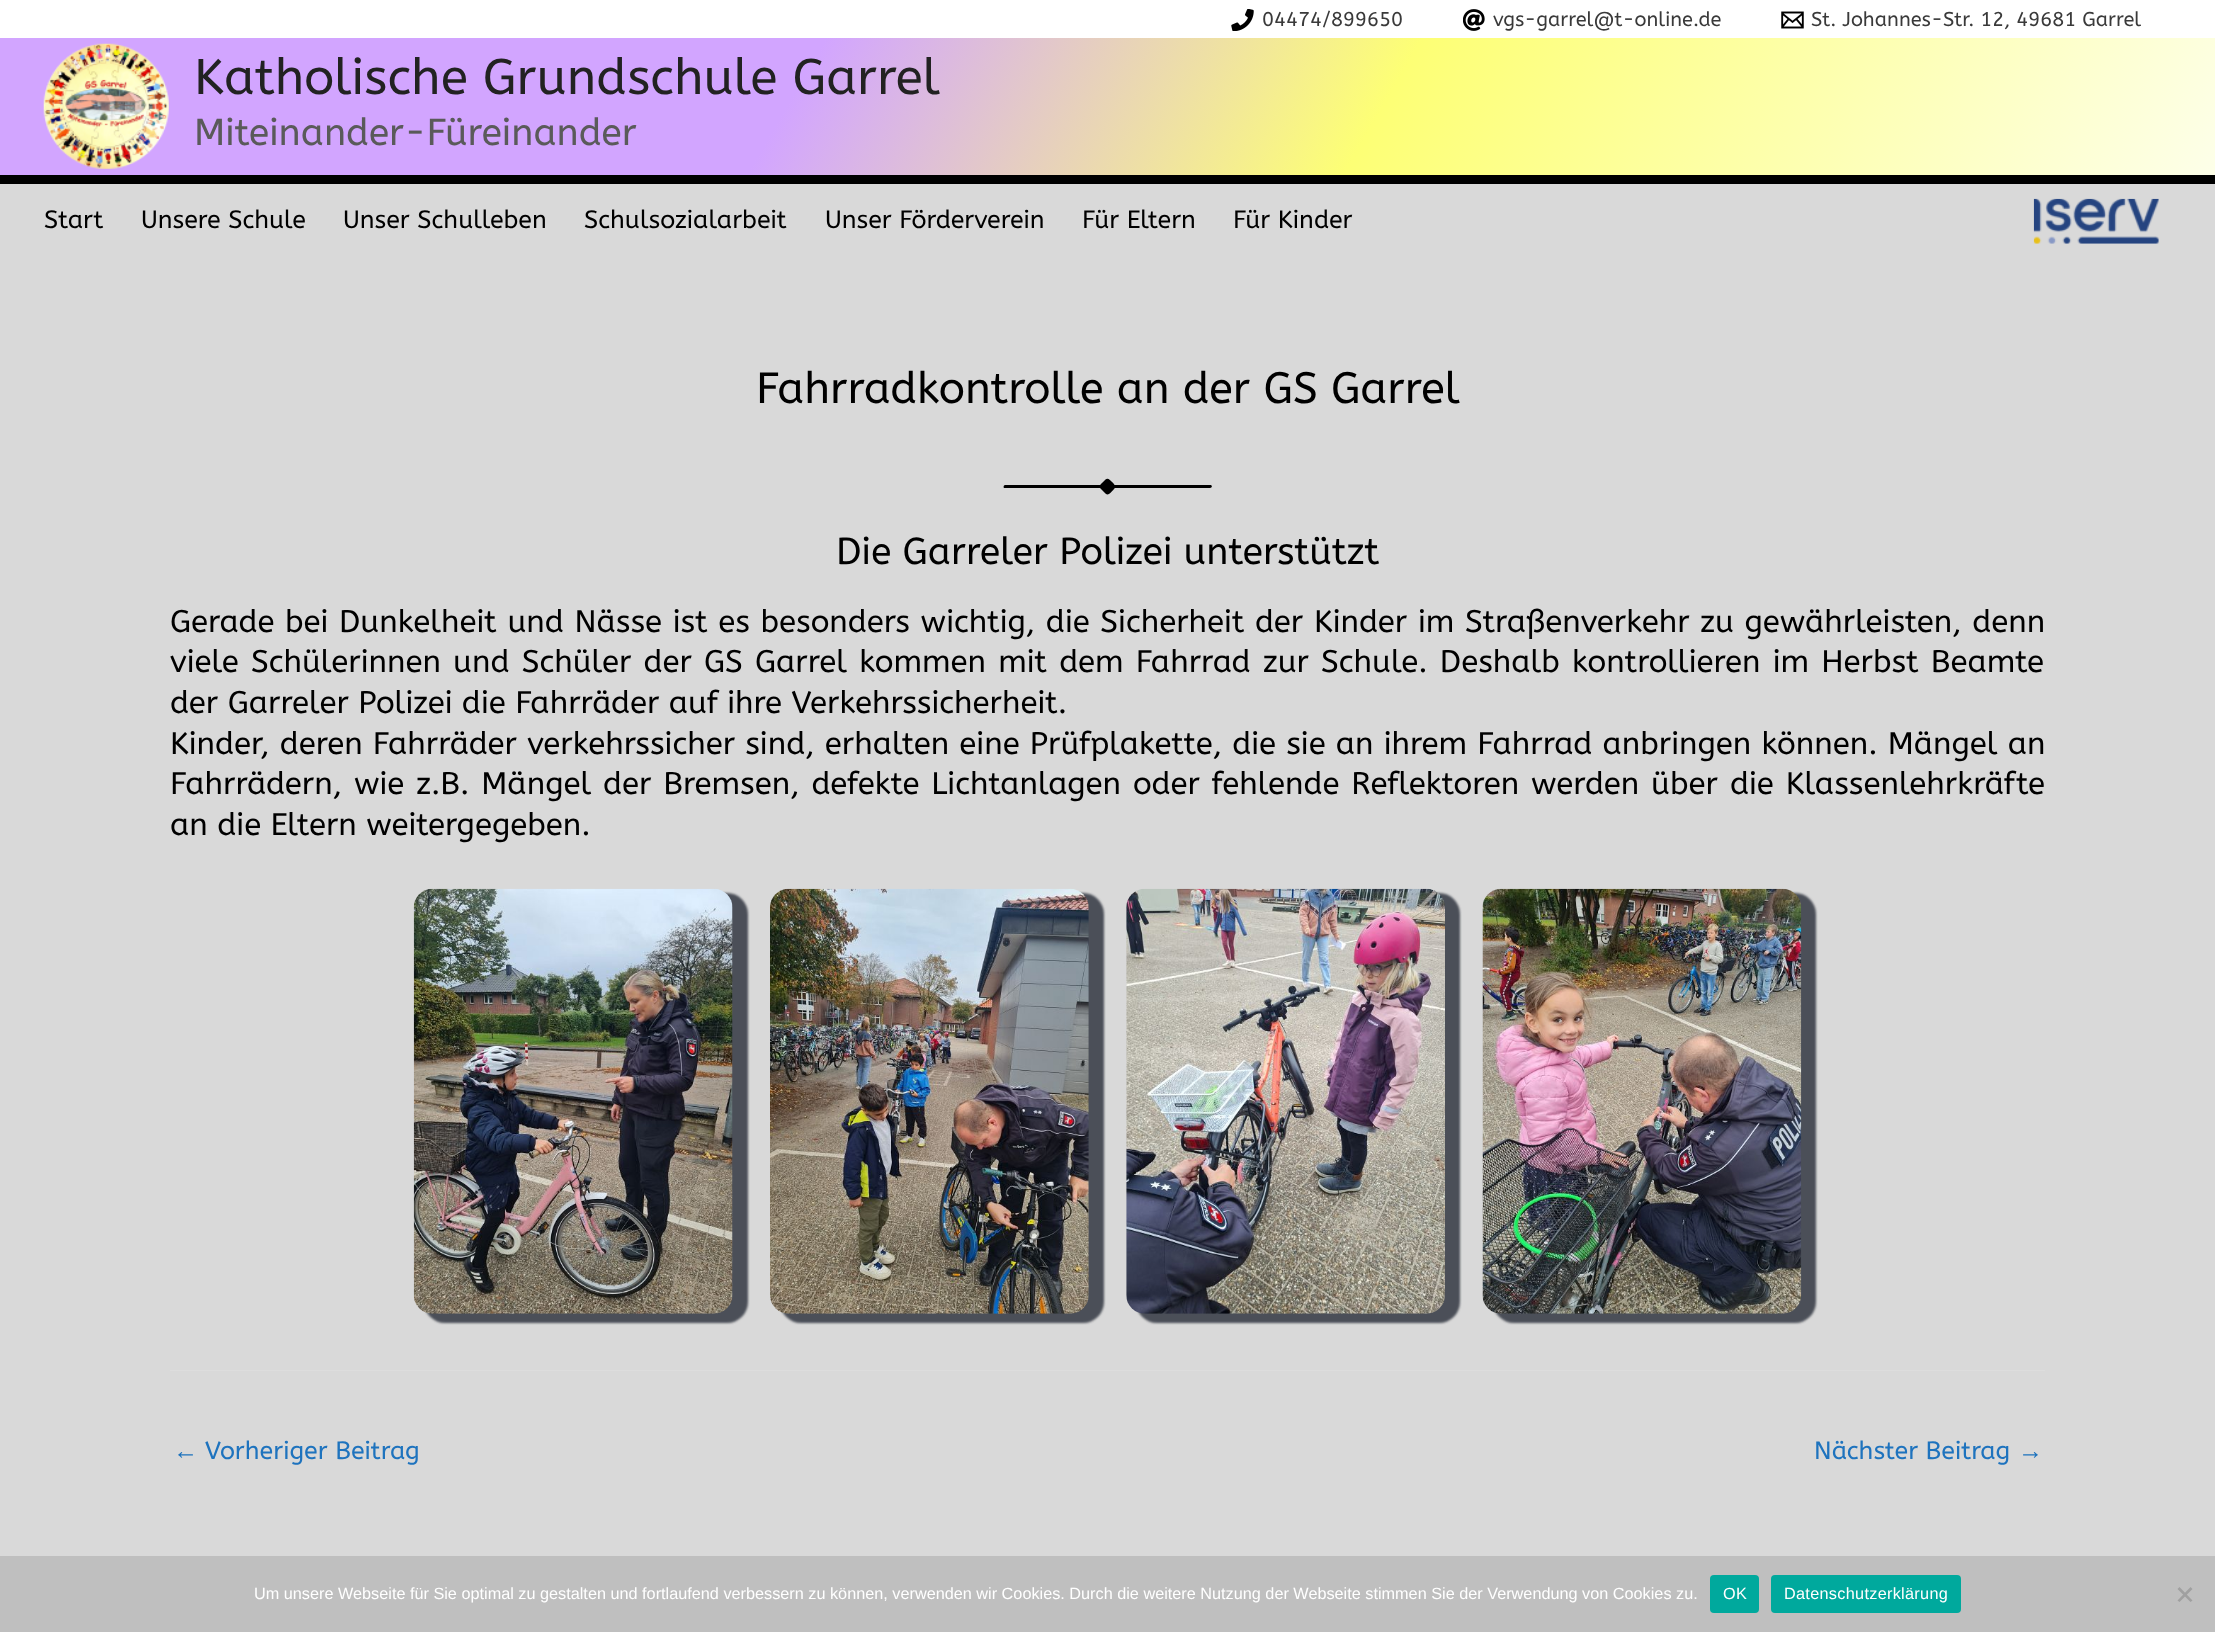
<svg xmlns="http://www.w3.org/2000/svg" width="2215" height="1632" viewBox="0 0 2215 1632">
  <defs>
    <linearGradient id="g1" gradientUnits="userSpaceOnUse" x1="1968" y1="603" x2="247" y2="-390"><stop offset="0" stop-color="#fdffe9"/><stop offset="0.38" stop-color="#fdff75"/><stop offset="0.64" stop-color="#d2a5ff"/></linearGradient>
    <filter id="blur1" x="-50%" y="-200%" width="200%" height="500%"><feGaussianBlur stdDeviation="1"/></filter>
  </defs>
  <rect width="100%" height="100%" fill="#d9d9d9"/>
  <rect x="0" y="0" width="2215" height="38" fill="#ffffff"/>
  <image x="1231" y="9" width="23" height="22" href="img1.png"/>
  <text x="1262" y="26" font-family="ABeeZee" font-size="20" fill="#3a3a3a">04474/899650</text>
  <image x="1463" y="9" width="22" height="22" href="img2.png"/>
  <text x="1493" y="26" font-family="ABeeZee" font-size="20" fill="#3a3a3a">vgs-garrel@t-online.de</text>
  <image x="1781" y="11" width="23" height="18" href="img3.png"/>
  <text x="1811" y="26" font-family="ABeeZee" font-size="20" fill="#3a3a3a">St. Johannes-Str. 12, 49681 Garrel</text>
  <rect x="0" y="38" width="2215" height="137" fill="url(#g1)"/>
  <rect x="0" y="175" width="2215" height="9" fill="#000000"/>
  <image x="43" y="43" width="126" height="126" href="img4.png"/>
  <text x="194" y="94" font-family="ABeeZee" font-size="50" fill="#222222">Katholische Grundschule Garrel</text>
  <text x="194" y="145" font-family="ABeeZee" font-size="37.5" fill="#5a5a5a">Miteinander-Füreinander</text>
  <text x="44" y="228" font-family="ABeeZee" font-size="25" fill="#000000">Start</text>
  <text x="141" y="228" font-family="ABeeZee" font-size="25" fill="#000000">Unsere Schule</text>
  <text x="343" y="228" font-family="ABeeZee" font-size="25" fill="#000000">Unser Schulleben</text>
  <text x="584" y="228" font-family="ABeeZee" font-size="25" fill="#000000">Schulsozialarbeit</text>
  <text x="825" y="228" font-family="ABeeZee" font-size="25" fill="#000000">Unser Förderverein</text>
  <text x="1082" y="228" font-family="ABeeZee" font-size="25" fill="#000000">Für Eltern</text>
  <text x="1233" y="228" font-family="ABeeZee" font-size="25" fill="#000000">Für Kinder</text>
  <image x="2033" y="198" width="126" height="46" href="img5.png"/>
  <text x="756" y="403" font-family="ABeeZee" font-size="43.75" fill="#000000">Fahrradkontrolle an der GS Garrel</text>
  <path d="M1114.5 488.5C1112.5 490.5 1109 496 1106 494L1100 488C1098.5 486 1100.5 484.5 1102 483L1105.5 479.5C1108 477.5 1110.5 480.5 1112 482C1113.5 483.5 1116.5 486 1114.5 488.5Z" fill="#000000"/>
  <path d="M1210 488H1005H1004C1003 487 1004 485 1005 485H1210C1213 485 1212 488 1210 488Z" fill="#000000"/>
  <text x="836" y="564" font-family="ABeeZee" font-size="37.5" fill="#000000">Die Garreler Polizei unterstützt</text>
  <text x="170" y="632" word-spacing="1.25" font-family="ABeeZee" font-size="31.25" fill="#000000">Gerade bei Dunkelheit und Nässe ist es besonders wichtig, die Sicherheit der Kinder im Straßenverkehr zu gewährleisten, denn</text>
  <text x="170" y="672" word-spacing="2.75" font-family="ABeeZee" font-size="31.25" fill="#000000">viele Schülerinnen und Schüler der GS Garrel kommen mit dem Fahrrad zur Schule. Deshalb kontrollieren im Herbst Beamte</text>
  <text x="170" y="713" font-family="ABeeZee" font-size="31.25" fill="#000000">der Garreler Polizei die Fahrräder auf ihre Verkehrssicherheit.</text>
  <text x="170" y="754" word-spacing="0.75" font-family="ABeeZee" font-size="31.25" fill="#000000">Kinder, deren Fahrräder verkehrssicher sind, erhalten eine Prüfplakette, die sie an ihrem Fahrrad anbringen können. Mängel an</text>
  <text x="170" y="794" word-spacing="2.5" font-family="ABeeZee" font-size="31.25" fill="#000000">Fahrrädern, wie z.B. Mängel der Bremsen, defekte Lichtanlagen oder fehlende Reflektoren werden über die Klassenlehrkräfte</text>
  <text x="170" y="835" font-family="ABeeZee" font-size="31.25" fill="#000000">an die Eltern weitergegeben.</text>
  <rect x="424" y="893" width="324" height="430" rx="21" fill="#4b4f58" filter="url(#blur1)"/>
  <image x="413" y="888" width="320" height="426" href="img6.png"/>
  <rect x="780" y="893" width="324" height="430" rx="21" fill="#4b4f58" filter="url(#blur1)"/>
  <image x="770" y="888" width="319" height="426" href="img7.png"/>
  <rect x="1136" y="893" width="324" height="430" rx="21" fill="#4b4f58" filter="url(#blur1)"/>
  <image x="1126" y="888" width="319" height="426" href="img8.png"/>
  <rect x="1493" y="893" width="323" height="430" rx="21" fill="#4b4f58" filter="url(#blur1)"/>
  <image x="1482" y="888" width="320" height="426" href="img9.png"/>
  <rect x="170" y="1370" width="1875" height="1" fill="#dddddd"/>
  <text x="173" y="1459" font-family="Liberation Sans" font-size="25" fill="#1e73be">←</text>
  <text x="205" y="1459" font-family="ABeeZee" font-size="25" fill="#1e73be">Vorheriger Beitrag</text>
  <text x="1814" y="1459" font-family="ABeeZee" font-size="25" fill="#1e73be">Nächster Beitrag</text>
  <text x="2018" y="1459" font-family="Liberation Sans" font-size="25" fill="#1e73be">→</text>
  <rect x="0" y="1556" width="2215" height="76" fill="#bfbfbf"/>
  <text x="254" y="1599" font-family="Liberation Sans" font-size="16.25" fill="#ffffff">Um unsere Webseite für Sie optimal zu gestalten und fortlaufend verbessern zu können, verwenden wir Cookies. Durch die weitere Nutzung der Webseite stimmen Sie der Verwendung von Cookies zu.</text>
  <rect x="1710" y="1575" width="49" height="38" rx="4" fill="#00a99d"/>
  <text x="1723" y="1599" font-family="Liberation Sans" font-size="16.25" letter-spacing="0.3" fill="#ffffff">OK</text>
  <rect x="1771" y="1575" width="190" height="38" rx="4" fill="#00a99d"/>
  <text x="1784" y="1599" font-family="Liberation Sans" font-size="16.25" letter-spacing="0.3" fill="#ffffff">Datenschutzerklärung</text>
  <path d="M2190.5 1587L2192.5 1589L2179.5 1602L2177.5 1600.5Z" fill="#a0a0a0"/>
  <path d="M2177.5 1589L2179.5 1587L2192.5 1600.5L2190.5 1602Z" fill="#a0a0a0"/>
</svg>
